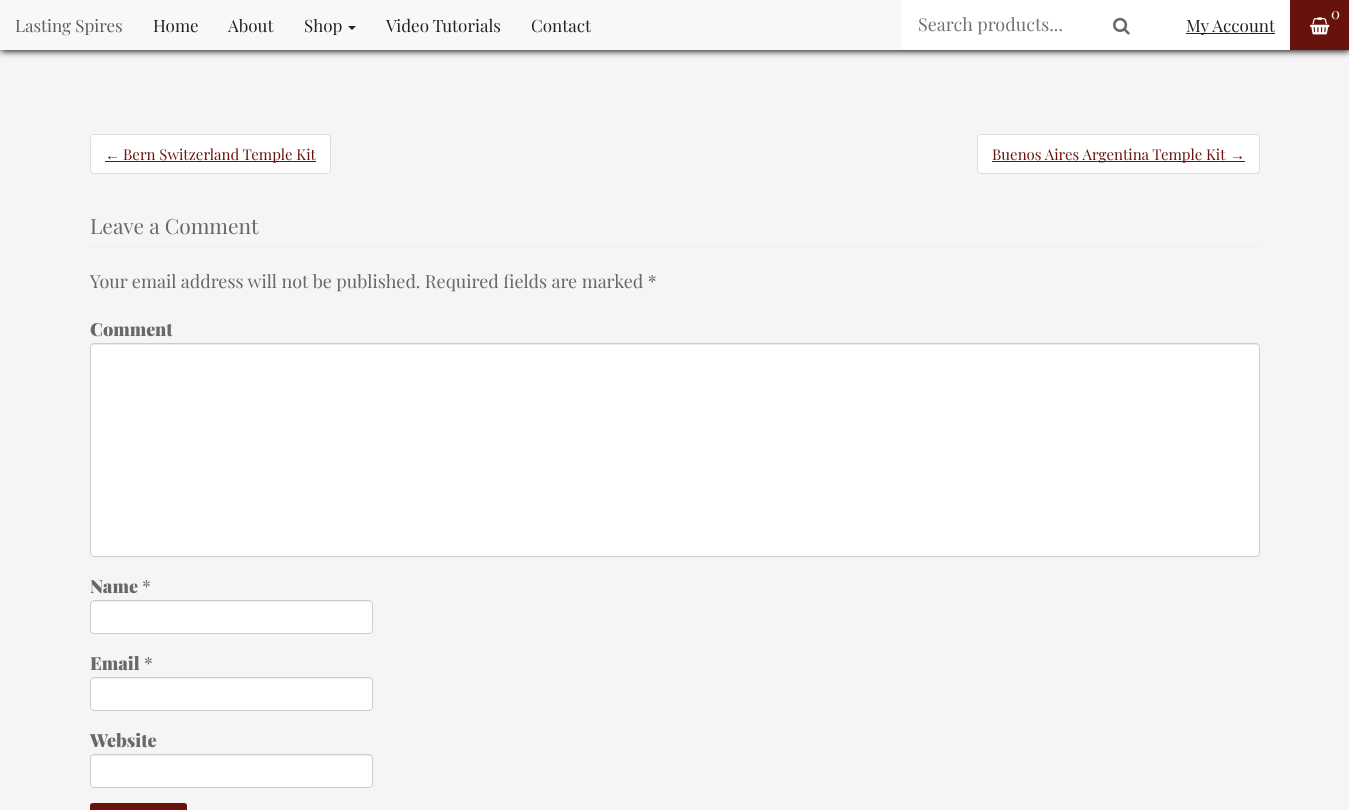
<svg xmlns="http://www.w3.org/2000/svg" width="1349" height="810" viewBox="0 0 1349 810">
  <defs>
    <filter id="blur1" x="-50%" y="-200%" width="200%" height="500%"><feGaussianBlur stdDeviation="3.5"/></filter>
  </defs>
  <rect width="100%" height="100%" fill="#f5f5f5"/>
  <rect x="1" y="1" width="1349" height="50" fill="#000000" filter="url(#blur1)"/>
  <rect x="0" y="0" width="902" height="50" fill="#f8f8f8"/>
  <text x="15" y="32" font-family="Playfair Display" font-size="17" fill="#5e5e5e">Lasting Spires</text>
  <text x="153" y="32" font-family="Playfair Display" font-size="17" fill="#222222">Home</text>
  <text x="228" y="32" font-family="Playfair Display" font-size="17" fill="#222222">About</text>
  <text x="304" y="32" font-family="Playfair Display" font-size="17" fill="#222222">Shop</text>
  <path d="M348 26H356L352 30Z" fill="#222222"/>
  <text x="386" y="32" font-family="Playfair Display" font-size="17" fill="#222222">Video Tutorials</text>
  <text x="531" y="32" font-family="Playfair Display" font-size="17" fill="#222222">Contact</text>
  <rect x="902" y="0" width="388" height="50" fill="#ffffff"/>
  <text x="918" y="31" font-family="Playfair Display" font-size="18" fill="#757575">Search products...</text>
  <image x="1113" y="17" width="17" height="18" href="img1.png"/>
  <rect x="1186" y="33" width="89" height="1" fill="#222222"/>
  <text x="1186" y="32" font-family="Playfair Display" font-size="17" fill="#222222">My Account</text>
  <rect x="1290" y="0" width="59" height="50" fill="#67120b"/>
  <text x="1331" y="19" font-family="Playfair Display" font-size="15" fill="#ffffff">0</text>
  <image x="1310" y="17" width="20" height="18" href="img2.png"/>
  <rect x="90.5" y="134.5" width="240" height="39" rx="3.5" fill="#ffffff" stroke="#dddddd"/>
  <text x="105" y="160" font-family="Liberation Serif" font-size="15" fill="#67120b">←</text>
  <rect x="105" y="161" width="211" height="1" fill="#67120b"/>
  <text x="123" y="160" font-family="Playfair Display" font-size="15" fill="#67120b">Bern Switzerland Temple Kit</text>
  <rect x="977.5" y="134.5" width="282" height="39" rx="3.5" fill="#ffffff" stroke="#dddddd"/>
  <rect x="992" y="161" width="253" height="1" fill="#67120b"/>
  <text x="992" y="160" font-family="Playfair Display" font-size="15" fill="#67120b">Buenos Aires Argentina Temple Kit</text>
  <text x="1230" y="160" font-family="Liberation Serif" font-size="15" fill="#67120b">→</text>
  <rect x="90" y="246" width="1170" height="1" fill="#eeeeee"/>
  <text x="90" y="234" font-family="Playfair Display" font-size="21" fill="#686868">Leave a Comment</text>
  <text x="90" y="288" font-family="Playfair Display" font-size="18" fill="#686868">Your email address will not be published. Required fields are marked *</text>
  <text x="90" y="336" font-family="Playfair Display" font-size="18" font-weight="900" fill="#686868">Comment</text>
  <rect x="90" y="343" width="1170" height="214" rx="4" fill="#ffffff"/>
  <path d="M94 345H1256C1258 345 1259 346 1259 348V347C1259 345 1258 344 1256 344H94C92 344 91 345 91 347V348C91 346 92 345 94 345Z" fill="#ececec"/>
  <rect x="90.5" y="343.5" width="1169" height="213" rx="3.5" fill="none" stroke="#cccccc"/>
  <text x="90" y="593" font-family="Playfair Display" font-size="18" font-weight="900" fill="#686868">Name</text>
  <text x="142" y="593" font-family="Playfair Display" font-size="18" fill="#686868">*</text>
  <rect x="90" y="600" width="283" height="34" rx="4" fill="#ffffff"/>
  <path d="M94 602H369C371 602 372 603 372 605V604C372 602 371 601 369 601H94C92 601 91 602 91 604V605C91 603 92 602 94 602Z" fill="#ececec"/>
  <rect x="90.5" y="600.5" width="282" height="33" rx="3.5" fill="none" stroke="#cccccc"/>
  <text x="90" y="670" font-family="Playfair Display" font-size="18" font-weight="900" fill="#686868">Email</text>
  <text x="144" y="670" font-family="Playfair Display" font-size="18" fill="#686868">*</text>
  <rect x="90" y="677" width="283" height="34" rx="4" fill="#ffffff"/>
  <path d="M94 679H369C371 679 372 680 372 682V681C372 679 371 678 369 678H94C92 678 91 679 91 681V682C91 680 92 679 94 679Z" fill="#ececec"/>
  <rect x="90.5" y="677.5" width="282" height="33" rx="3.5" fill="none" stroke="#cccccc"/>
  <text x="90" y="747" font-family="Playfair Display" font-size="18" font-weight="900" fill="#686868">Website</text>
  <rect x="90" y="754" width="283" height="34" rx="4" fill="#ffffff"/>
  <path d="M94 756H369C371 756 372 757 372 759V758C372 756 371 755 369 755H94C92 755 91 756 91 758V759C91 757 92 756 94 756Z" fill="#ececec"/>
  <rect x="90.5" y="754.5" width="282" height="33" rx="3.5" fill="none" stroke="#cccccc"/>
  <rect x="90" y="803" width="97" height="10" rx="3" fill="#67120b"/>
</svg>
